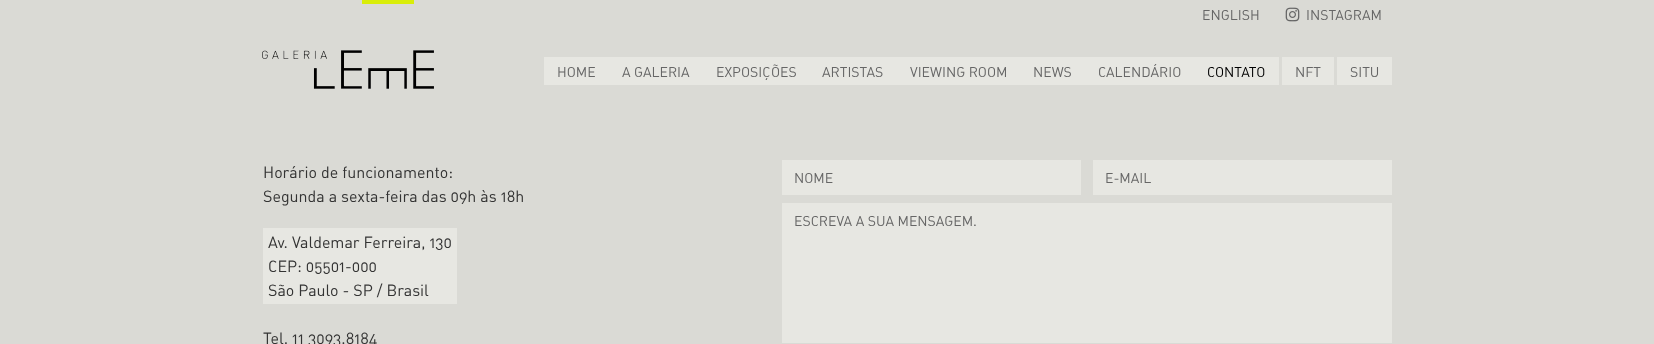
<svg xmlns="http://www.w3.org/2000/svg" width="1654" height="344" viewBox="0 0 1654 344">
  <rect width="100%" height="100%" fill="#dadad5"/>
  <image x="262" y="0" width="172" height="89" href="img1.png"/>
  <text x="1202" y="20" font-family="DIN" font-size="14" fill="#666666">ENGLISH</text>
  <image x="1285" y="7" width="15" height="15" href="img2.png"/>
  <text x="1306" y="20" font-family="DIN" font-size="14" fill="#666666">INSTAGRAM</text>
  <rect x="544" y="57" width="735" height="28" fill="#e7e7e2"/>
  <text x="557" y="77" font-family="DIN" font-size="14" fill="#666666">HOME</text>
  <text x="622" y="77" font-family="DIN" font-size="14" fill="#666666">A GALERIA</text>
  <text x="716" y="77" font-family="DIN" font-size="14" fill="#666666">EXPOSIÇÕES</text>
  <text x="822" y="77" font-family="DIN" font-size="14" fill="#666666">ARTISTAS</text>
  <text x="910" y="77" font-family="DIN" font-size="14" fill="#666666">VIEWING ROOM</text>
  <text x="1033" y="77" font-family="DIN" font-size="14" fill="#666666">NEWS</text>
  <text x="1098" y="77" font-family="DIN" font-size="14" fill="#666666">CALENDÁRIO</text>
  <text x="1207" y="77" font-family="DIN" font-size="14" fill="#000000">CONTATO</text>
  <rect x="1282" y="57" width="52" height="28" fill="#e7e7e2"/>
  <text x="1295" y="77" font-family="DIN" font-size="14" fill="#666666">NFT</text>
  <rect x="1337" y="57" width="55" height="28" fill="#e7e7e2"/>
  <text x="1350" y="77" font-family="DIN" font-size="14" fill="#666666">SITU</text>
  <text x="263" y="178" font-family="DIN" font-size="16" fill="#333333">Horário de funcionamento:</text>
  <text x="263" y="202" font-family="DIN" font-size="16" fill="#333333">Segunda a sexta-feira das 09h às 18h</text>
  <rect x="263" y="228" width="194" height="76" fill="#e7e7e2"/>
  <text x="268" y="248" font-family="DIN" font-size="16" fill="#333333">Av. Valdemar Ferreira, 130</text>
  <text x="268" y="272" font-family="DIN" font-size="16" fill="#333333">CEP: 05501-000</text>
  <text x="268" y="296" font-family="DIN" font-size="16" fill="#333333">São Paulo - SP / Brasil</text>
  <text x="263" y="344" font-family="DIN" font-size="16" fill="#333333">Tel. 11 3093.8184</text>
  <rect x="782" y="160" width="299" height="35" fill="#e7e7e2"/>
  <text x="794" y="183" font-family="DIN" font-size="14" fill="#666666">NOME</text>
  <rect x="1093" y="160" width="299" height="35" fill="#e7e7e2"/>
  <text x="1105" y="183" font-family="DIN" font-size="14" fill="#666666">E-MAIL</text>
  <rect x="782" y="203" width="610" height="140" fill="#e7e7e2"/>
  <text x="794" y="226" font-family="DIN" font-size="14" fill="#666666">ESCREVA A SUA MENSAGEM.</text>
</svg>
